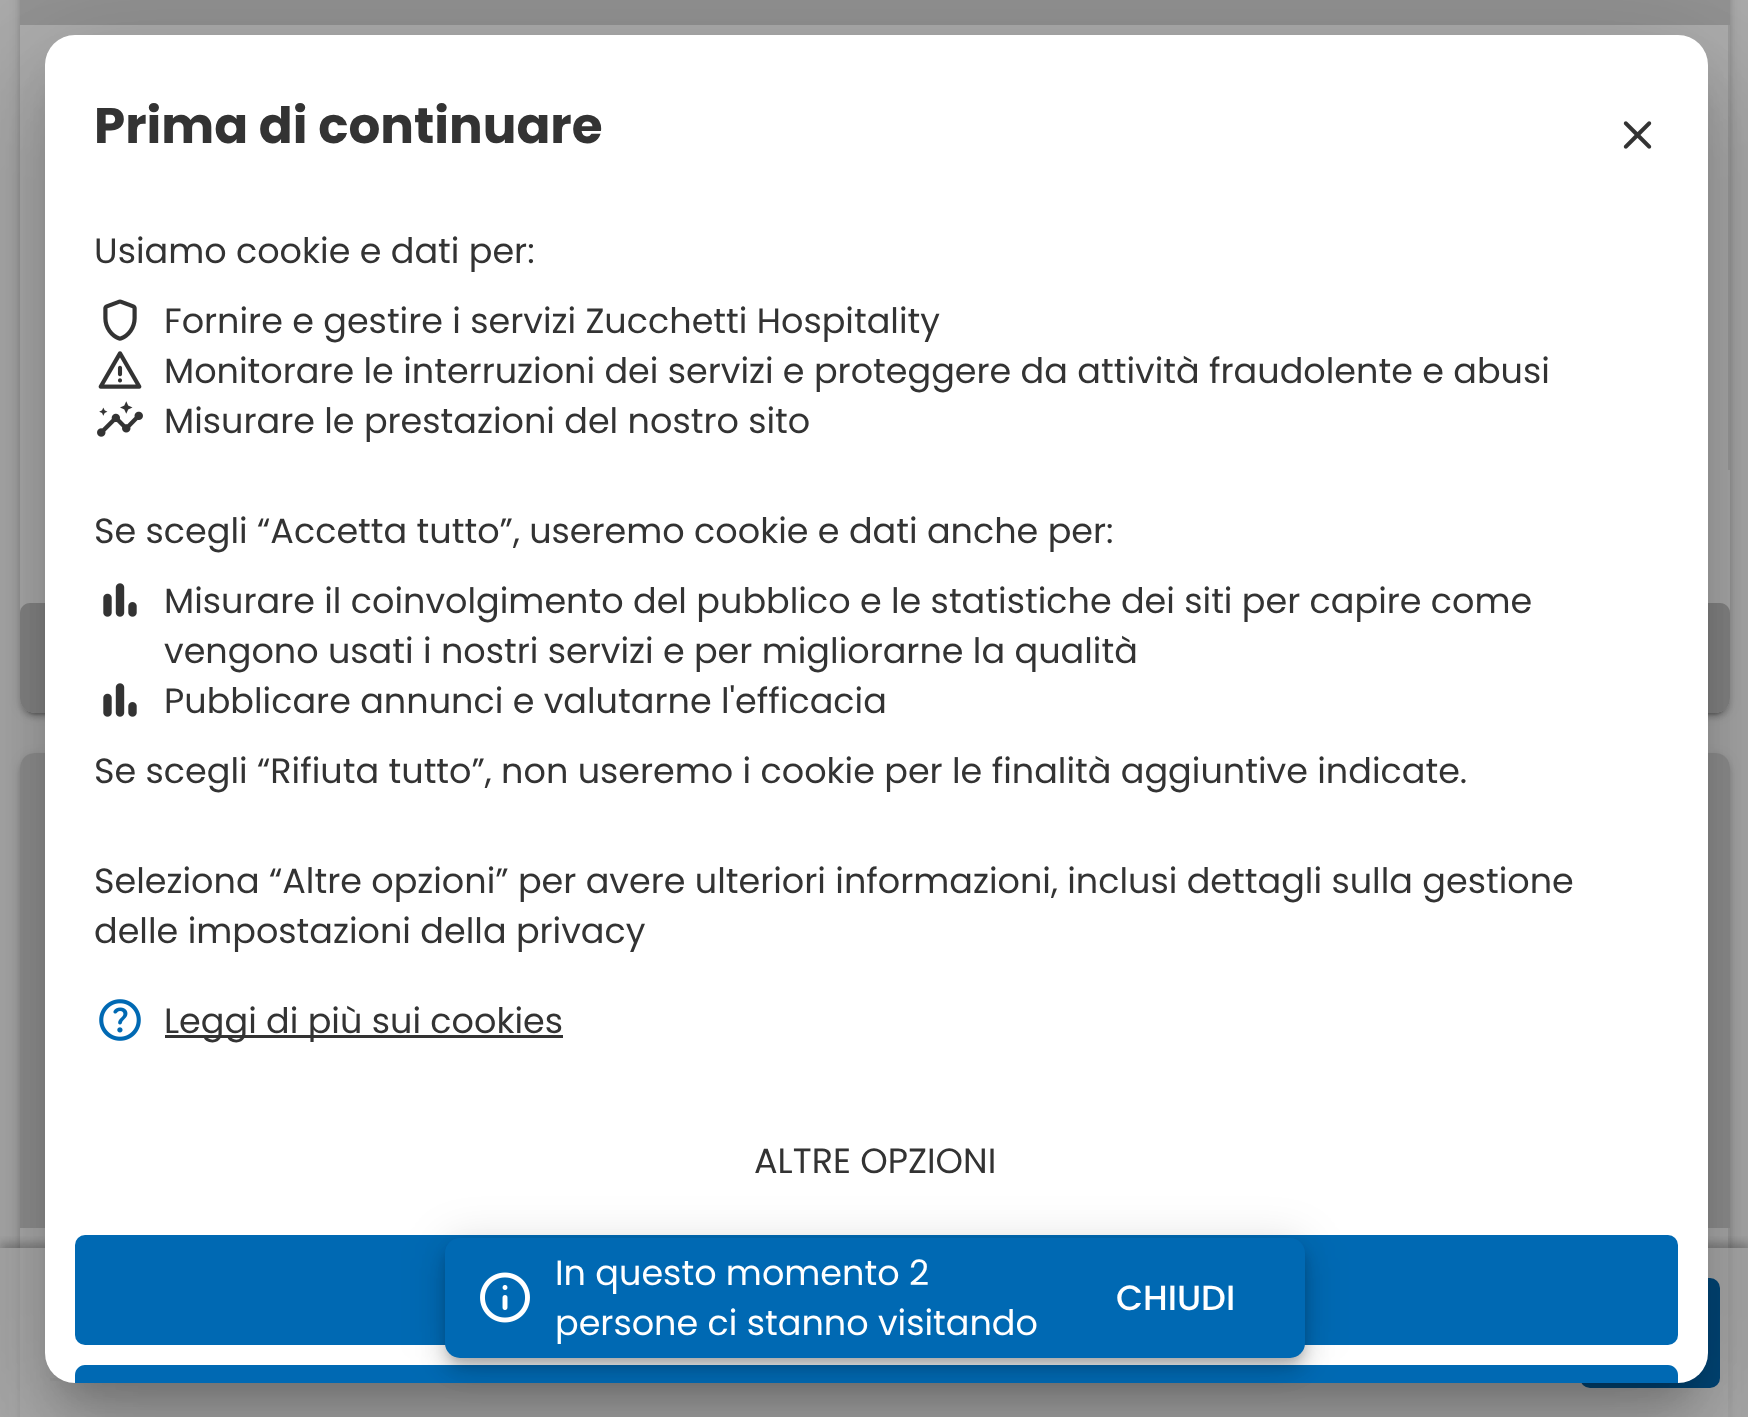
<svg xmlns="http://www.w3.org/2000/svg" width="1748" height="1417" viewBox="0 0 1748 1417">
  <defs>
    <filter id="blur1" x="-50%" y="-200%" width="200%" height="500%"><feGaussianBlur stdDeviation="6"/></filter>
    <filter id="blur2" x="-50%" y="-200%" width="200%" height="500%"><feGaussianBlur stdDeviation="2.5"/></filter>
    <filter id="blur3" x="-50%" y="-200%" width="200%" height="500%"><feGaussianBlur stdDeviation="1"/></filter>
    <clipPath id="clip1"><rect x="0" y="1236" width="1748" height="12"/></clipPath>
    <filter id="blur4" x="-50%" y="-200%" width="200%" height="500%"><feGaussianBlur stdDeviation="5"/></filter>
    <filter id="blur5" x="-50%" y="-200%" width="200%" height="500%"><feGaussianBlur stdDeviation="57.5"/></filter>
    <filter id="blur6" x="-50%" y="-200%" width="200%" height="500%"><feGaussianBlur stdDeviation="47.5"/></filter>
    <filter id="blur7" x="-50%" y="-200%" width="200%" height="500%"><feGaussianBlur stdDeviation="19"/></filter>
    <filter id="blur8" x="-50%" y="-200%" width="200%" height="500%"><feGaussianBlur stdDeviation="22.5"/></filter>
    <filter id="blur9" x="-50%" y="-200%" width="200%" height="500%"><feGaussianBlur stdDeviation="12.5"/></filter>
  </defs>
  <rect width="100%" height="100%" fill="#aaaaaa"/>
  <rect x="20" y="-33" width="1710" height="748" rx="15" fill="#000000" fill-opacity="0.12" filter="url(#blur1)"/>
  <rect x="20" y="-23" width="1710" height="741" rx="15" fill="#000000" fill-opacity="0.14" filter="url(#blur2)"/>
  <rect x="25" y="-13" width="1700" height="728" rx="10" fill="#000000" fill-opacity="0.2" filter="url(#blur3)"/>
  <rect x="20" y="-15" width="1710" height="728" rx="15" fill="#adadad"/>
  <rect x="20" y="0" width="1710" height="25" fill="#929292"/>
  <rect x="1728" y="25" width="2" height="445" fill="#9c9c9c"/>
  <path d="M30 603H1720C1725.5 603 1730 607.5 1730 613V698C1730 706.5 1723.5 713 1715 713H35C26.5 713 20 706.5 20 698V613C20 607.5 24.5 603 30 603Z" fill="#868686"/>
  <rect x="20" y="755" width="1710" height="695" rx="15" fill="#000000" fill-opacity="0.12" filter="url(#blur1)"/>
  <rect x="20" y="758" width="1710" height="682" rx="15" fill="#000000" fill-opacity="0.14" filter="url(#blur2)"/>
  <rect x="20" y="753" width="1710" height="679" rx="15" fill="#adadad"/>
  <path d="M35 753H1715C1723.5 753 1730 759.5 1730 768V1228H20V768C20 759.5 26.5 753 35 753Z" fill="#929292"/>
  <rect x="1728" y="1228" width="2" height="189" fill="#9c9c9c"/>
  <rect x="50" y="1378" width="15" height="3" fill="#9c9c9c"/>
  <g clip-path="url(#clip1)">
    <rect x="0" y="1243" width="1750" height="170" fill="#000000" fill-opacity="0.25" filter="url(#blur4)"/>
  </g>
  <rect x="9" y="1248" width="1732" height="169" fill="#adadad" fill-opacity="0.7"/>
  <rect x="1580" y="1278" width="140" height="110" rx="10" fill="#00477a"/>
  <rect x="25" y="38" width="1703" height="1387" rx="50" fill="#000000" fill-opacity="0.12" filter="url(#blur5)"/>
  <rect x="38" y="88" width="1677" height="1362" rx="38" fill="#000000" fill-opacity="0.14" filter="url(#blur6)"/>
  <rect x="63" y="80" width="1627" height="1313" rx="13" fill="#000000" fill-opacity="0.2" filter="url(#blur7)"/>
  <rect x="45" y="35" width="1663" height="1348" rx="30" fill="#ffffff"/>
  <text x="94" y="143" font-family="Poppins" font-size="50" font-weight="bold" fill="#333333">Prima di continuare</text>
  <image x="1623" y="121" width="29" height="28" href="img1.png"/>
  <text x="94" y="263" font-family="Poppins" font-size="35" fill="#333333">Usiamo cookie e dati per:</text>
  <image x="103" y="299" width="34" height="42" href="img2.png"/>
  <text x="164" y="333" font-family="Poppins" font-size="35" fill="#333333">Fornire e gestire i servizi Zucchetti Hospitality</text>
  <image x="98" y="351" width="44" height="38" href="img3.png"/>
  <text x="164" y="383" font-family="Poppins" font-size="35" fill="#333333">Monitorare le interruzioni dei servizi e proteggere da attività fraudolente e abusi</text>
  <image x="97" y="401" width="46" height="36" href="img4.png"/>
  <text x="164" y="433" font-family="Poppins" font-size="35" fill="#333333">Misurare le prestazioni del nostro sito</text>
  <text x="94" y="543" font-family="Poppins" font-size="35" fill="#333333">Se scegli “Accetta tutto”, useremo cookie e dati anche per:</text>
  <image x="103" y="583" width="34" height="34" href="img5.png"/>
  <text x="164" y="613" font-family="Poppins" font-size="35" fill="#333333">Misurare il coinvolgimento del pubblico e le statistiche dei siti per capire come</text>
  <text x="164" y="663" font-family="Poppins" font-size="35" fill="#333333">vengono usati i nostri servizi e per migliorarne la qualità</text>
  <image x="103" y="683" width="34" height="34" href="img5.png"/>
  <text x="164" y="713" font-family="Poppins" font-size="35" fill="#333333">Pubblicare annunci e valutarne l'efficacia</text>
  <text x="94" y="783" font-family="Poppins" font-size="35" fill="#333333">Se scegli “Rifiuta tutto”, non useremo i cookie per le finalità aggiuntive indicate.</text>
  <text x="94" y="893" font-family="Poppins" font-size="35" fill="#333333">Seleziona “Altre opzioni” per avere ulteriori informazioni, inclusi dettagli sulla gestione</text>
  <text x="94" y="943" font-family="Poppins" font-size="35" fill="#333333">delle impostazioni della privacy</text>
  <image x="99" y="999" width="42" height="42" href="img6.png"/>
  <rect x="165" y="1035" width="398" height="3" fill="#333333"/>
  <text x="164" y="1033" font-family="Poppins" font-size="35" fill="#333333">Leggi di più sui cookies</text>
  <text x="754" y="1173" font-family="Poppins" font-size="35" fill="#333333">ALTRE OPZIONI</text>
  <rect x="75" y="1235" width="1603" height="110" rx="10" fill="#0069b3"/>
  <path d="M85 1365H1668C1673.5 1365 1678 1369.5 1678 1375V1383H75V1375C75 1369.5 79.5 1365 85 1365Z" fill="#0069b3"/>
  <rect x="445" y="1240" width="860" height="120" rx="15" fill="#000000" fill-opacity="0.12" filter="url(#blur8)"/>
  <rect x="445" y="1253" width="860" height="120" rx="15" fill="#000000" fill-opacity="0.14" filter="url(#blur9)"/>
  <rect x="448" y="1248" width="855" height="115" rx="13" fill="#000000" fill-opacity="0.2" filter="url(#blur1)"/>
  <rect x="445" y="1238" width="860" height="120" rx="15" fill="#0069b3"/>
  <image x="480" y="1272" width="50" height="51" href="img7.png"/>
  <text x="555" y="1285" font-family="Poppins" font-size="35" fill="#ffffff">In questo momento 2</text>
  <text x="555" y="1335" font-family="Poppins" font-size="35" fill="#ffffff">persone ci stanno visitando</text>
  <text x="1116" y="1310" font-family="Poppins" font-size="35" font-weight="500" fill="#ffffff">CHIUDI</text>
</svg>
